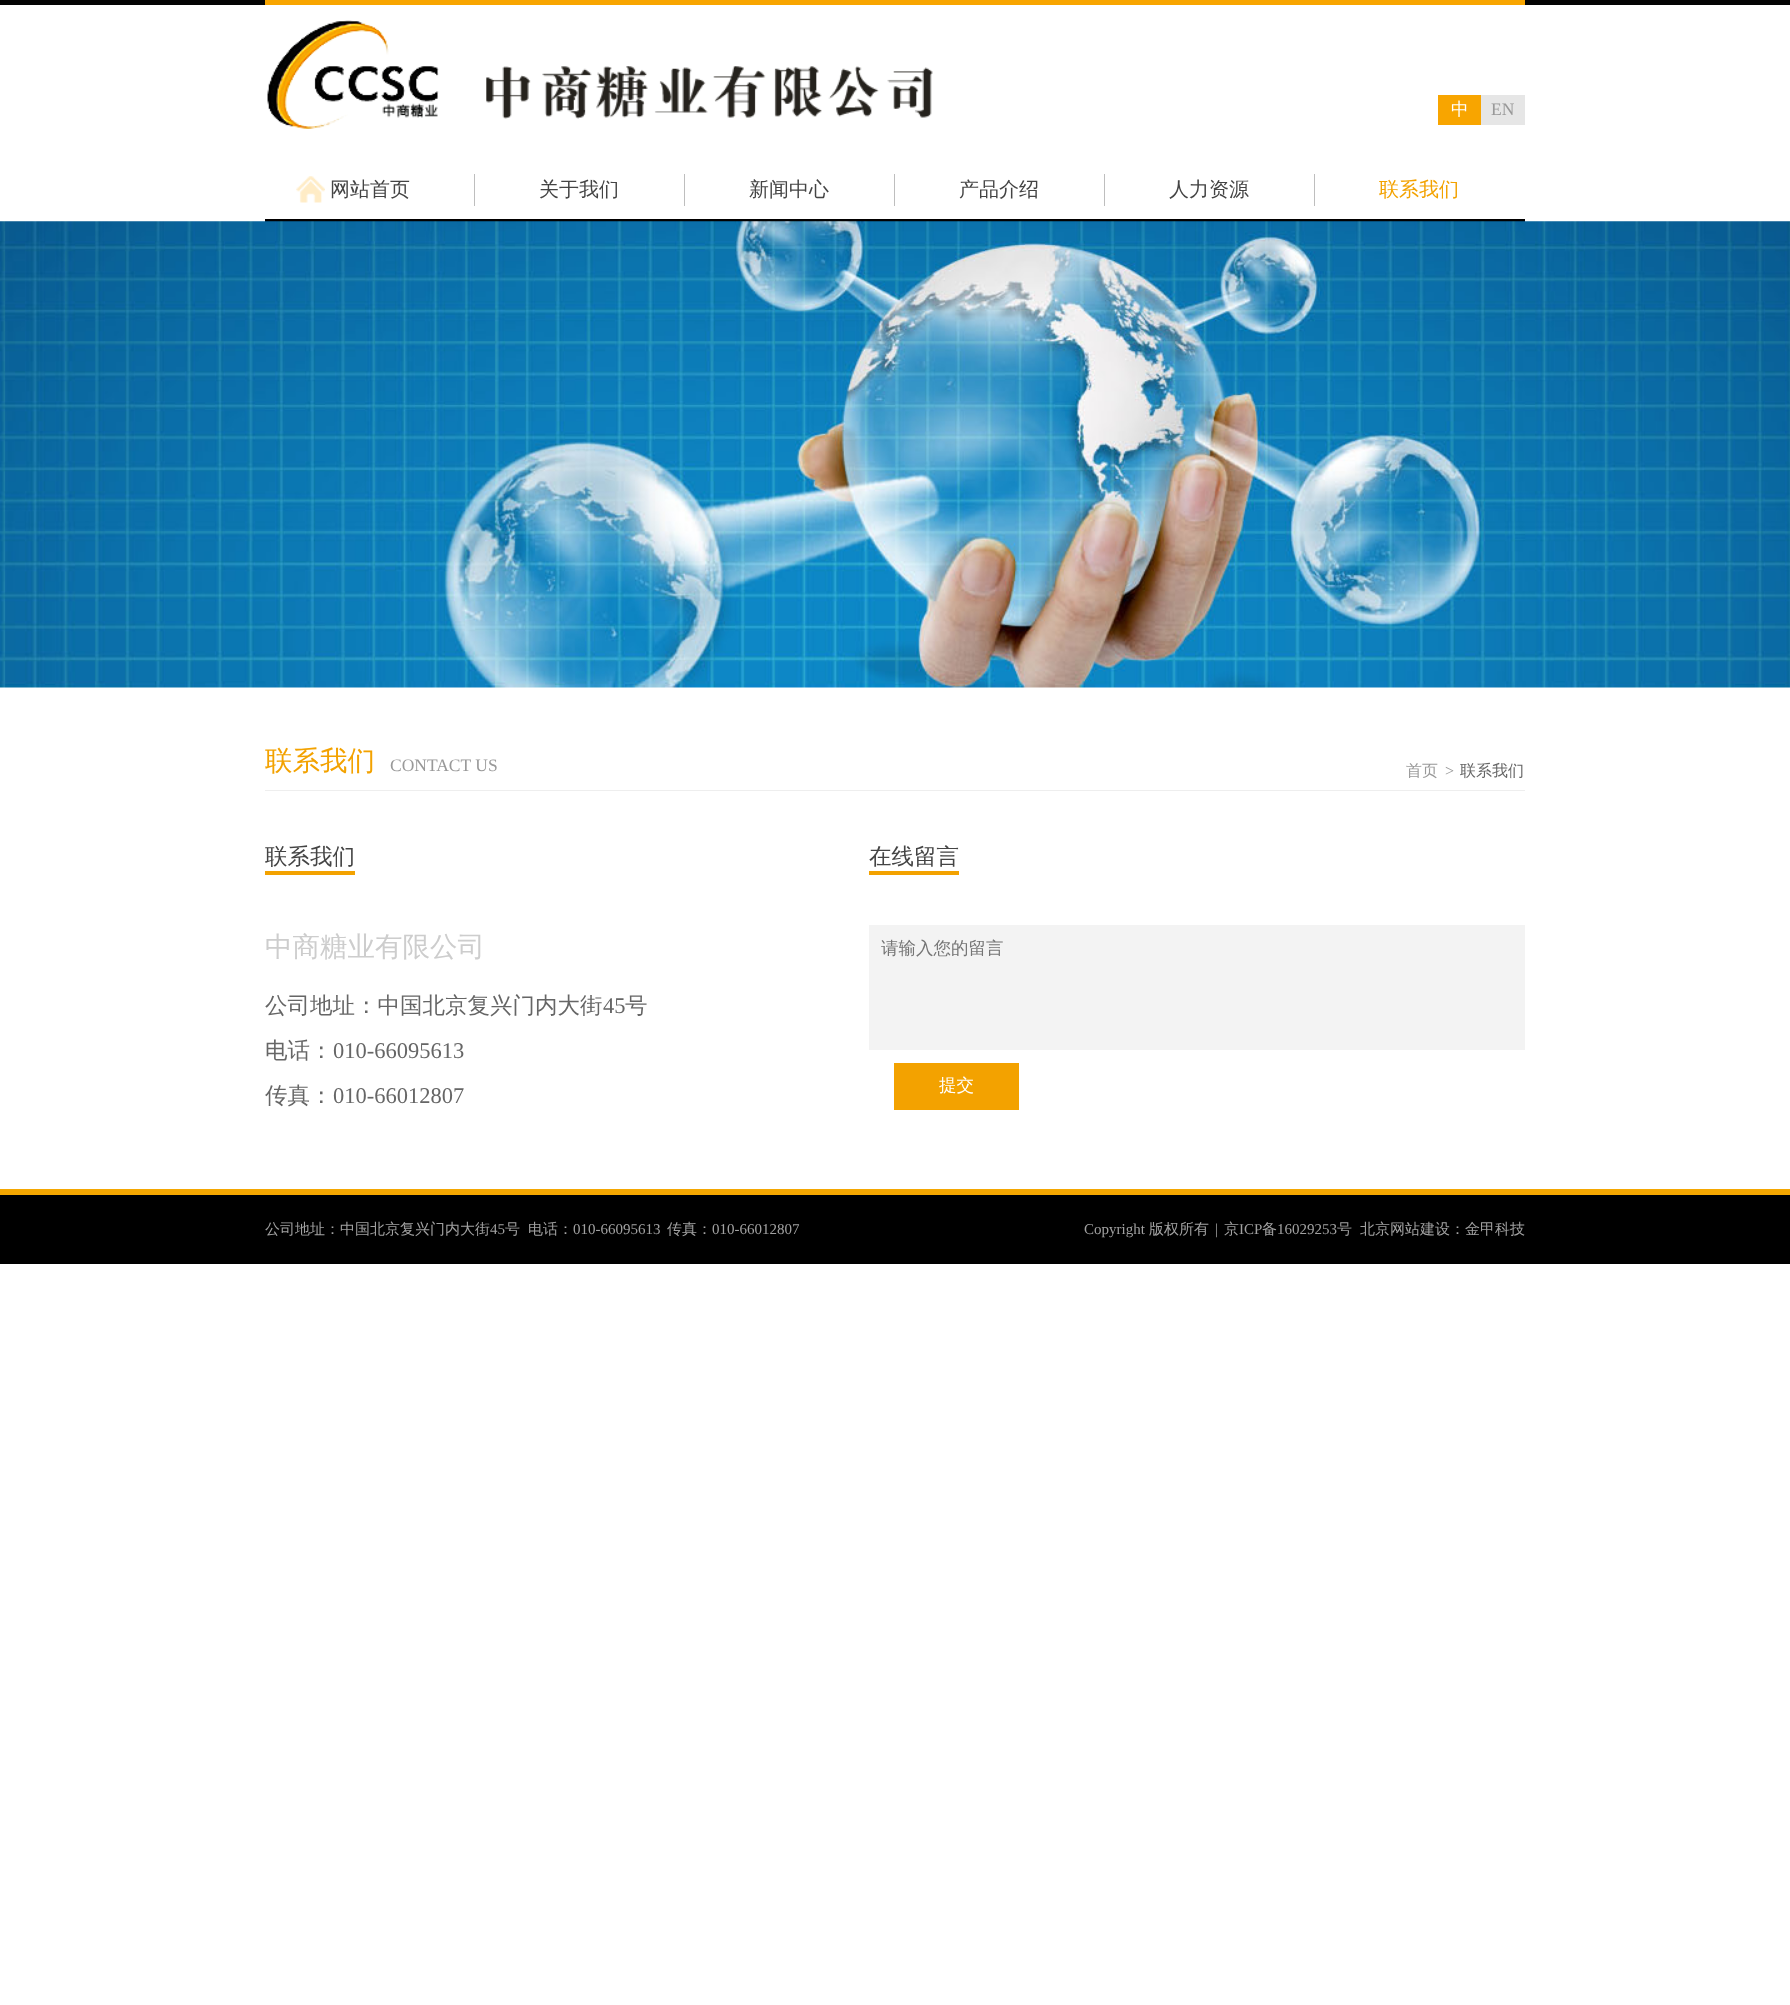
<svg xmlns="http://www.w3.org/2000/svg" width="1790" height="2005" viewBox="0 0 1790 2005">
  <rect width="100%" height="100%" fill="#ffffff"/>
  <rect x="0" y="0" width="1790" height="5" fill="#040404"/>
  <rect x="265" y="0" width="1260" height="5" fill="#f8a500"/>
  <image x="267" y="20" width="666" height="109" href="img1.png"/>
  <rect x="1438" y="95" width="43" height="30" fill="#f8a500"/>
  <text x="1451" y="115" font-family="WenQuanYi Zen Hei" font-size="17.5" font-weight="500" fill="#ffffff">中</text>
  <rect x="1481" y="95" width="44" height="30" fill="#e6e6e6"/>
  <text x="1491" y="115" font-family="Liberation Serif" font-size="17.5" fill="#999999">EN</text>
  <image x="296" y="176" width="29" height="27" href="img2.png"/>
  <text x="330" y="196" font-family="WenQuanYi Zen Hei" font-size="20" font-weight="500" fill="#444444">网站首页</text>
  <rect x="474" y="174" width="1" height="32" fill="#bebebe"/>
  <text x="539" y="196" font-family="WenQuanYi Zen Hei" font-size="20" font-weight="500" fill="#444444">关于我们</text>
  <rect x="684" y="174" width="1" height="32" fill="#bebebe"/>
  <text x="749" y="196" font-family="WenQuanYi Zen Hei" font-size="20" font-weight="500" fill="#444444">新闻中心</text>
  <rect x="894" y="174" width="1" height="32" fill="#bebebe"/>
  <text x="959" y="196" font-family="WenQuanYi Zen Hei" font-size="20" font-weight="500" fill="#444444">产品介绍</text>
  <rect x="1104" y="174" width="1" height="32" fill="#bebebe"/>
  <text x="1169" y="196" font-family="WenQuanYi Zen Hei" font-size="20" font-weight="500" fill="#444444">人力资源</text>
  <rect x="1314" y="174" width="1" height="32" fill="#bebebe"/>
  <text x="1379" y="196" font-family="WenQuanYi Zen Hei" font-size="20" font-weight="500" fill="#f3a200">联系我们</text>
  <rect x="265" y="219" width="1260" height="3" fill="#020000"/>
  <image x="0" y="221" width="1790" height="467" href="img3.png"/>
  <rect x="265" y="790" width="1260" height="1" fill="#eeeeee"/>
  <text x="265" y="770" font-family="WenQuanYi Zen Hei" font-size="27.5" font-weight="500" fill="#f3a200">联系我们</text>
  <text x="390" y="771" font-family="Liberation Serif" font-size="17.5" fill="#999999">CONTACT US</text>
  <text x="1406" y="776" font-family="WenQuanYi Zen Hei" font-size="16" font-weight="500" fill="#999999">首页</text>
  <text x="1445" y="776" font-family="Liberation Serif" font-size="16" fill="#999999">&gt;</text>
  <text x="1460" y="776" font-family="WenQuanYi Zen Hei" font-size="16" font-weight="500" fill="#666666">联系我们</text>
  <rect x="265" y="871" width="90" height="4" fill="#f3a200"/>
  <text x="265" y="864" font-family="WenQuanYi Zen Hei" font-size="22.5" font-weight="500" fill="#444444">联系我们</text>
  <text x="265" y="956" font-family="WenQuanYi Zen Hei" font-size="27.5" font-weight="500" fill="#cdcdcd">中商糖业有限公司</text>
  <text x="265" y="1013" font-family="WenQuanYi Zen Hei" font-size="22.5" font-weight="500" fill="#666666">公司地址：中国北京复兴门内大街</text>
  <text x="603" y="1013" font-family="Liberation Serif" font-size="22.5" fill="#666666">45</text>
  <text x="625" y="1013" font-family="WenQuanYi Zen Hei" font-size="22.5" font-weight="500" fill="#666666">号</text>
  <text x="265" y="1058" font-family="WenQuanYi Zen Hei" font-size="22.5" font-weight="500" fill="#666666">电话：</text>
  <text x="333" y="1058" font-family="Liberation Serif" font-size="22.5" fill="#666666">010-66095613</text>
  <text x="265" y="1103" font-family="WenQuanYi Zen Hei" font-size="22.5" font-weight="500" fill="#666666">传真：</text>
  <text x="333" y="1103" font-family="Liberation Serif" font-size="22.5" fill="#666666">010-66012807</text>
  <rect x="869" y="871" width="90" height="4" fill="#f3a200"/>
  <text x="869" y="864" font-family="WenQuanYi Zen Hei" font-size="22.5" font-weight="500" fill="#444444">在线留言</text>
  <rect x="869" y="925" width="656" height="125" fill="#f3f3f3"/>
  <text x="881" y="954" font-family="WenQuanYi Zen Hei" font-size="17.5" font-weight="500" fill="#757575">请输入您的留言</text>
  <rect x="894" y="1063" width="125" height="47" fill="#f3a200"/>
  <text x="939" y="1091" font-family="WenQuanYi Zen Hei" font-size="17.5" font-weight="500" fill="#ffffff">提交</text>
  <rect x="0" y="1195" width="1790" height="69" fill="#000000"/>
  <rect x="0" y="1189" width="1790" height="6" fill="#f4a701"/>
  <text x="265" y="1234" font-family="WenQuanYi Zen Hei" font-size="15" font-weight="500" fill="#a1a1a1">公司地址：中国北京复兴门内大街</text>
  <text x="490" y="1234" font-family="Liberation Serif" font-size="15" fill="#a1a1a1">45</text>
  <text x="505" y="1234" font-family="WenQuanYi Zen Hei" font-size="15" font-weight="500" fill="#a1a1a1">号</text>
  <text x="528" y="1234" font-family="WenQuanYi Zen Hei" font-size="15" font-weight="500" fill="#a1a1a1">电话：</text>
  <text x="573" y="1234" font-family="Liberation Serif" font-size="15" fill="#a1a1a1">010-66095613</text>
  <text x="667" y="1234" font-family="WenQuanYi Zen Hei" font-size="15" font-weight="500" fill="#a1a1a1">传真：</text>
  <text x="712" y="1234" font-family="Liberation Serif" font-size="15" fill="#a1a1a1">010-66012807</text>
  <text x="1084" y="1234" font-family="Liberation Serif" font-size="15" fill="#a1a1a1">Copyright</text>
  <text x="1149" y="1234" font-family="WenQuanYi Zen Hei" font-size="15" font-weight="500" fill="#a1a1a1">版权所有</text>
  <text x="1215" y="1234" font-family="Liberation Serif" font-size="15" fill="#a1a1a1">|</text>
  <text x="1224" y="1234" font-family="WenQuanYi Zen Hei" font-size="15" font-weight="500" fill="#a1a1a1">京</text>
  <text x="1239" y="1234" font-family="Liberation Serif" font-size="15" fill="#a1a1a1">ICP</text>
  <text x="1262" y="1234" font-family="WenQuanYi Zen Hei" font-size="15" font-weight="500" fill="#a1a1a1">备</text>
  <text x="1277" y="1234" font-family="Liberation Serif" font-size="15" fill="#a1a1a1">16029253</text>
  <text x="1337" y="1234" font-family="WenQuanYi Zen Hei" font-size="15" font-weight="500" fill="#a1a1a1">号</text>
  <text x="1360" y="1234" font-family="WenQuanYi Zen Hei" font-size="15" font-weight="500" fill="#a1a1a1">北京网站建设：金甲科技</text>
</svg>
